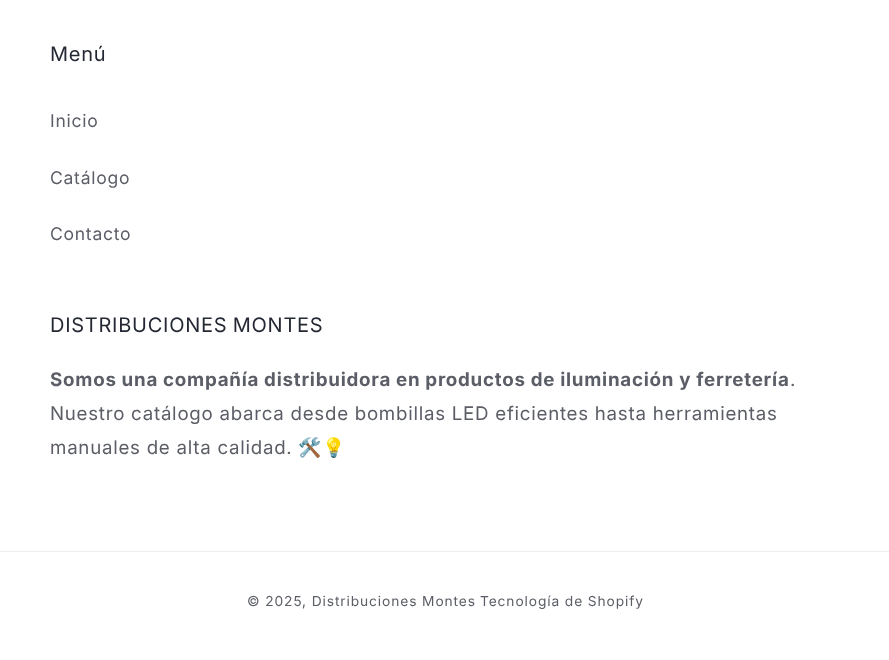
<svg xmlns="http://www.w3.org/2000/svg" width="889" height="660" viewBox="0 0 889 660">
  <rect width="100%" height="100%" fill="#ffffff"/>
  <text x="50" y="61" font-family="Inter" font-size="20" letter-spacing="0.75" fill="#242833">Menú</text>
  <text x="50" y="127" font-family="Inter" font-size="17.5" letter-spacing="0.75" fill="#5b5e66">Inicio</text>
  <text x="50" y="184" font-family="Inter" font-size="17.5" letter-spacing="0.75" fill="#5b5e66">Catálogo</text>
  <text x="50" y="240" font-family="Inter" font-size="17.5" letter-spacing="0.75" fill="#5b5e66">Contacto</text>
  <text x="50" y="332" word-spacing="-1" font-family="Inter" font-size="20" letter-spacing="0.75" fill="#242833">DISTRIBUCIONES MONTES</text>
  <text x="50" y="386" word-spacing="-0.25" font-family="Inter" font-size="18.75" font-weight="bold" letter-spacing="0.75" fill="#5b5e66">Somos una compañía distribuidora en productos de iluminación y ferretería</text>
  <text x="790" y="386" font-family="Inter" font-size="18.75" letter-spacing="0.75" fill="#5b5e66">.</text>
  <text x="50" y="420" font-family="'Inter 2'" font-size="18.75" letter-spacing="0.75" fill="#5b5e66">Nuestro catálogo abarca desde bombillas LED eficientes hasta herramientas</text>
  <text x="50" y="454" font-family="'Inter 2'" font-size="18.75" letter-spacing="0.75" fill="#5b5e66">manuales de alta calidad.</text>
  <text x="298" y="454" font-family="Noto Color Emoji" font-size="18.75" letter-spacing="0.75" fill="#5b5e66">🛠️💡</text>
  <rect x="0" y="551" width="889" height="1" fill="#edeeef"/>
  <text x="247" y="606" font-family="Inter" font-size="13.75" letter-spacing="0.9" fill="#5b5e66">© 2025, Distribuciones Montes</text>
  <text x="480" y="606" font-family="Inter" font-size="13.75" letter-spacing="0.9" fill="#5b5e66">Tecnología de Shopify</text>
</svg>
